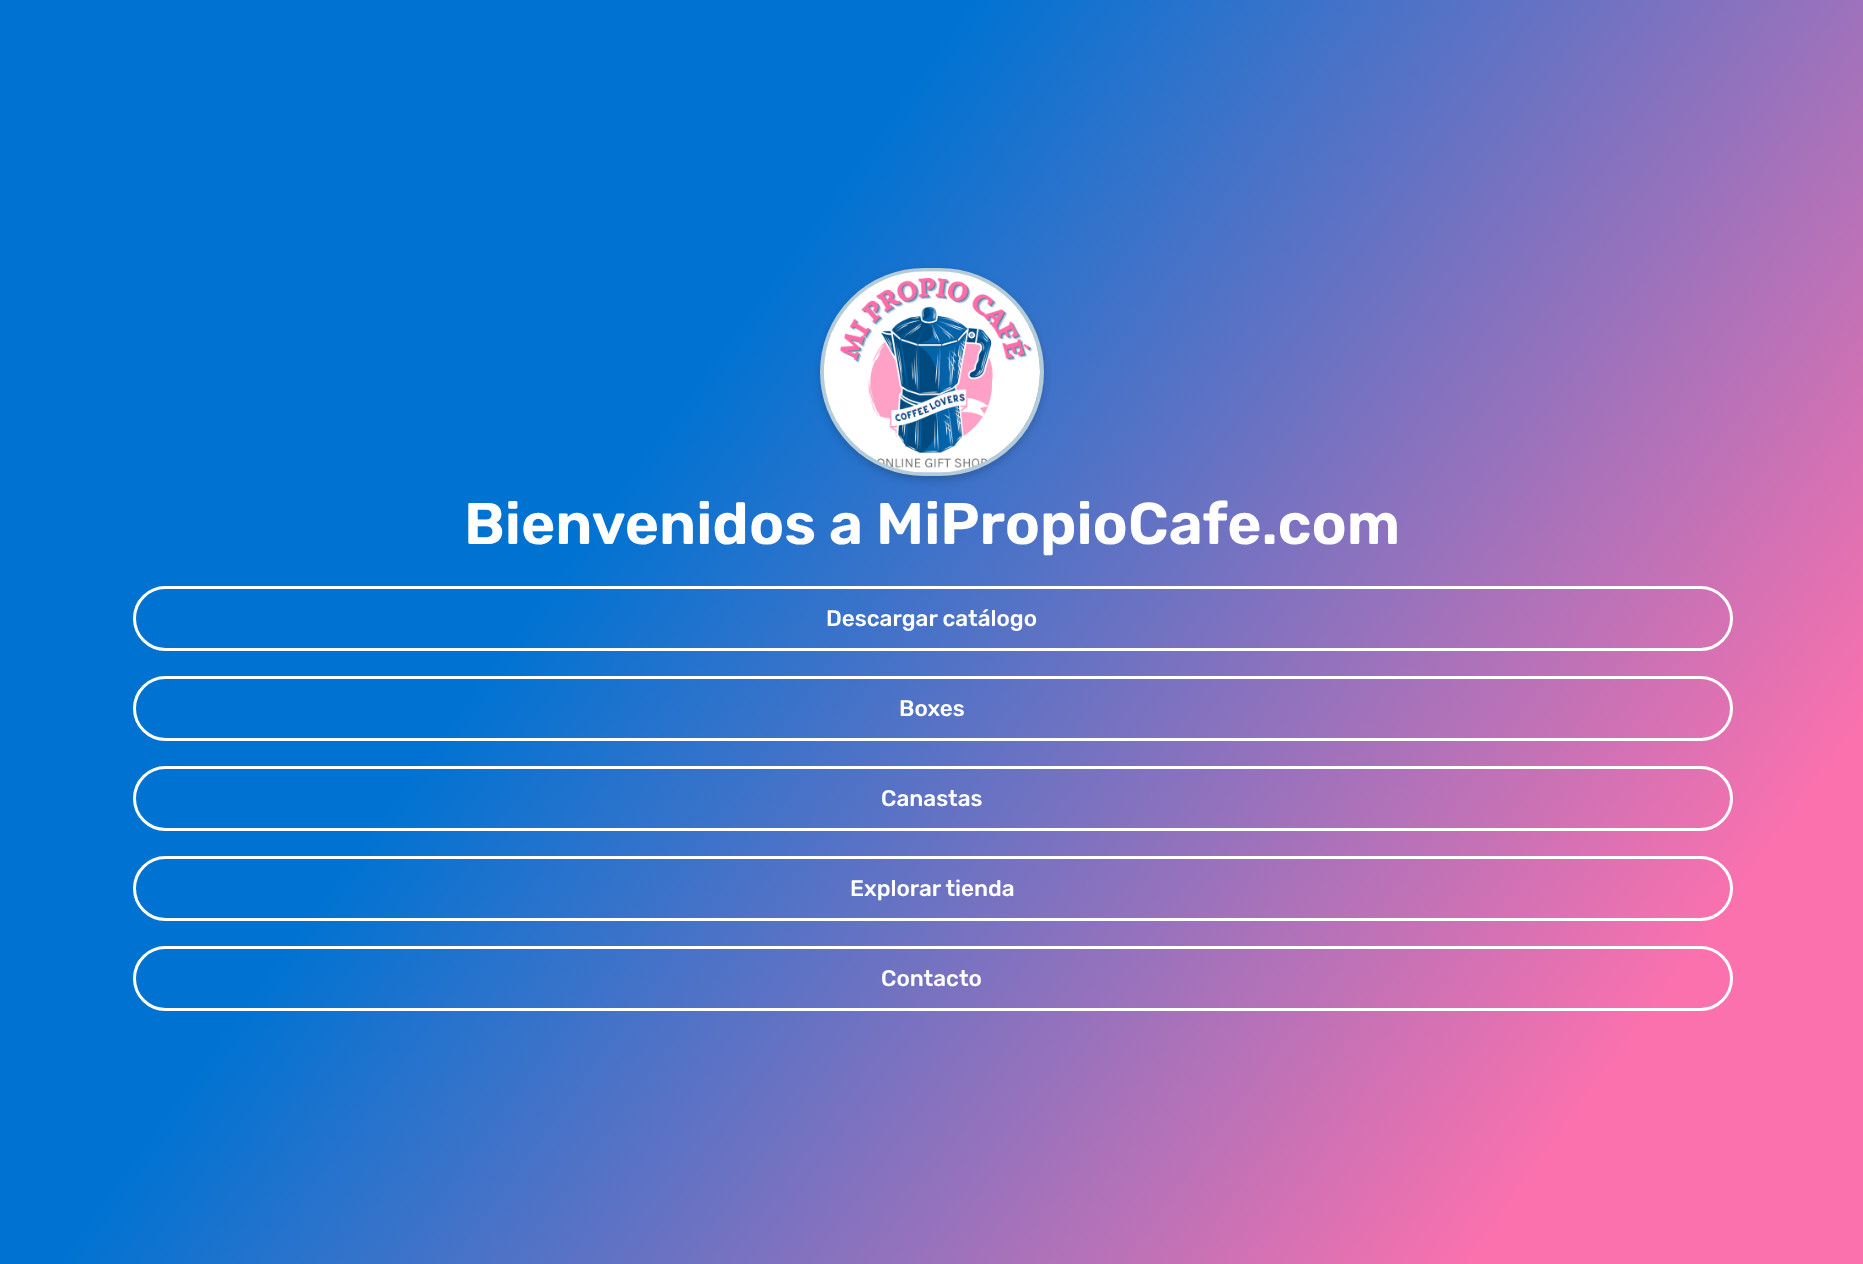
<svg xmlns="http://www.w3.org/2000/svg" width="1863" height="1264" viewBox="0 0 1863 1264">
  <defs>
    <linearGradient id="g1" gradientUnits="userSpaceOnUse" x1="1843" y1="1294" x2="21" y2="-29"><stop offset="0.14" stop-color="#fb71ae"/><stop offset="0.65" stop-color="#0073d2"/></linearGradient>
    <filter id="blur1" x="-50%" y="-200%" width="200%" height="500%"><feGaussianBlur stdDeviation="6"/></filter>
  </defs>
  <rect width="100%" height="100%" fill="#ffffff"/>
  <rect x="0" y="0" width="1863" height="1264" fill="url(#g1)"/>
  <rect x="823" y="274" width="218" height="204" rx="102" fill="#000000" fill-opacity="0.27" filter="url(#blur1)"/>
  <rect x="822" y="270" width="220" height="204" rx="102" fill="none" stroke="#b4cbd8" stroke-width="4"/>
  <image x="823" y="271" width="217" height="202" href="img1.png"/>
  <text x="464" y="544" font-family="Rubik" font-size="58.75" font-weight="600" fill="#ffffff">Bienvenidos a MiPropioCafe.com</text>
  <rect x="134.5" y="587.5" width="1597" height="62" rx="31" fill="none" stroke="#ffffff" stroke-width="3"/>
  <text x="826" y="626" font-family="Rubik" font-size="22.5" font-weight="500" fill="#ffffff">Descargar catálogo</text>
  <rect x="134.5" y="677.5" width="1597" height="62" rx="31" fill="none" stroke="#ffffff" stroke-width="3"/>
  <text x="899" y="716" font-family="Rubik" font-size="22.5" font-weight="500" fill="#ffffff">Boxes</text>
  <rect x="134.5" y="767.5" width="1597" height="62" rx="31" fill="none" stroke="#ffffff" stroke-width="3"/>
  <text x="881" y="806" font-family="Rubik" font-size="22.5" font-weight="500" fill="#ffffff">Canastas</text>
  <rect x="134.5" y="857.5" width="1597" height="62" rx="31" fill="none" stroke="#ffffff" stroke-width="3"/>
  <text x="850" y="896" font-family="Rubik" font-size="22.5" font-weight="500" fill="#ffffff">Explorar tienda</text>
  <rect x="134.5" y="947.5" width="1597" height="62" rx="31" fill="none" stroke="#ffffff" stroke-width="3"/>
  <text x="881" y="986" font-family="Rubik" font-size="22.5" font-weight="500" fill="#ffffff">Contacto</text>
</svg>
